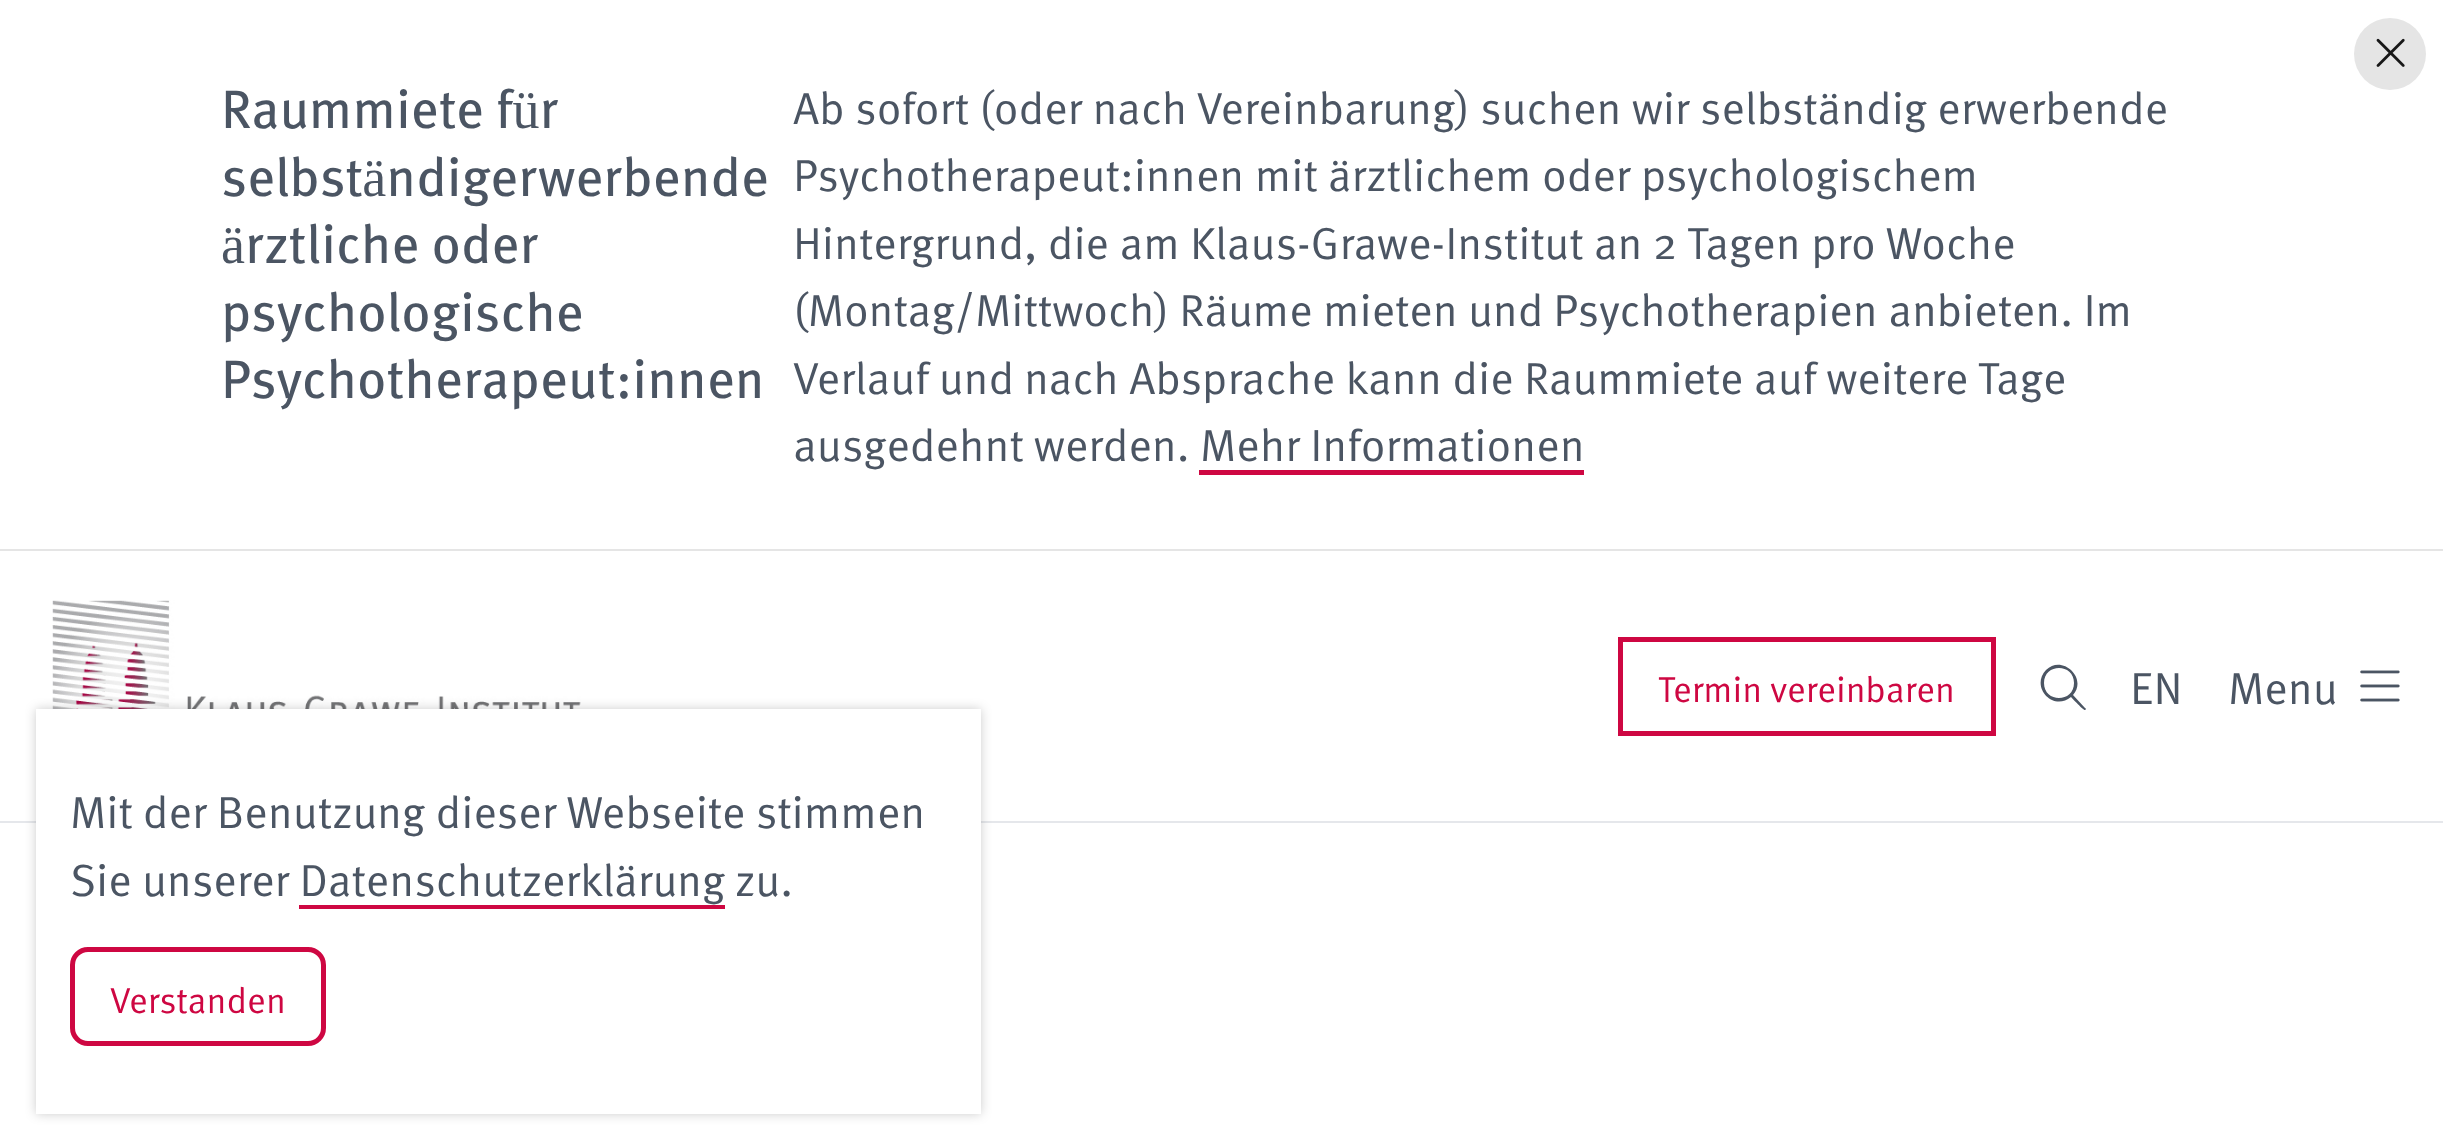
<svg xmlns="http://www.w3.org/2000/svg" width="2443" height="1148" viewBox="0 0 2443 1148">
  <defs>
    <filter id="blur1" x="-50%" y="-200%" width="200%" height="500%"><feGaussianBlur stdDeviation="5.5"/></filter>
  </defs>
  <rect width="100%" height="100%" fill="#ffffff"/>
  <rect x="0" y="549" width="2443" height="2" fill="#e5e5e5"/>
  <circle cx="2390" cy="54" r="36" fill="#e5e5e5"/>
  <image x="2376" y="38" width="29" height="29" href="img1.png"/>
  <text x="221" y="128" font-family="'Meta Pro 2'" font-size="54" fill="#4b5563">Raummiete für</text>
  <text x="221" y="196" font-family="'Meta Pro 2'" font-size="54" fill="#4b5563">selbständigerwerbende</text>
  <text x="221" y="263" font-family="'Meta Pro 2'" font-size="54" fill="#4b5563">ärztliche oder</text>
  <text x="221" y="331" font-family="'Meta Pro 2'" font-size="54" fill="#4b5563">psychologische</text>
  <text x="221" y="398" font-family="'Meta Pro 2'" font-size="54" fill="#4b5563">Psychotherapeut:innen</text>
  <text x="793" y="124" font-family="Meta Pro" font-size="45" fill="#4b5563">Ab sofort (oder nach Vereinbarung) suchen wir selbständig erwerbende</text>
  <text x="793" y="191" font-family="Meta Pro" font-size="45" fill="#4b5563">Psychotherapeut:innen mit ärztlichem oder psychologischem</text>
  <text x="793" y="259" font-family="Meta Pro" font-size="45" fill="#4b5563">Hintergrund, die am Klaus-Grawe-Institut an 2 Tagen pro Woche</text>
  <text x="793" y="326" font-family="Meta Pro" font-size="45" fill="#4b5563">(Montag/Mittwoch) Räume mieten und Psychotherapien anbieten. Im</text>
  <text x="793" y="394" font-family="Meta Pro" font-size="45" fill="#4b5563">Verlauf und nach Absprache kann die Raummiete auf weitere Tage</text>
  <text x="793" y="461" font-family="Meta Pro" font-size="45" fill="#4b5563">ausgedehnt werden. Mehr Informationen</text>
  <rect x="1199" y="470" width="385" height="5" fill="#ce0742"/>
  <rect x="0" y="821" width="2443" height="2" fill="#e5e7eb"/>
  <image x="52" y="600" width="529" height="109" href="img2.png"/>
  <rect x="1620.5" y="639.5" width="373" height="94" fill="none" stroke="#ce0742" stroke-width="5"/>
  <text x="1658" y="702" font-family="Meta Pro" font-size="36" fill="#ce0742">Termin vereinbaren</text>
  <path d="M2074 683C2074 663 2044 663 2044 683C2044 703 2074 703 2074 683ZM2071 697C2053 712 2030 687 2046 670C2062 654 2088 678 2073 695L2085 708C2086 708 2086 710 2085 710C2083 710 2073 699 2071 697Z" fill="#4b5563"/>
  <text x="2130" y="704" font-family="Meta Pro" font-size="45" fill="#4b5563">EN</text>
  <text x="2228" y="704" font-family="Meta Pro" font-size="45" fill="#4b5563">Menu</text>
  <image x="2360" y="670" width="40" height="32" href="img3.png"/>
  <rect x="36" y="709" width="945" height="405" fill="#000000" fill-opacity="0.2" filter="url(#blur1)"/>
  <rect x="36" y="709" width="945" height="405" fill="#ffffff"/>
  <text x="70" y="828" font-family="Meta Pro" font-size="45" fill="#4b5563">Mit der Benutzung dieser Webseite stimmen</text>
  <text x="70" y="896" font-family="Meta Pro" font-size="45" fill="#4b5563">Sie unserer Datenschutzerklärung</text>
  <text x="735" y="896" font-family="Meta Pro" font-size="45" fill="#4b5563">zu.</text>
  <rect x="299" y="905" width="426" height="4" fill="#ce0742"/>
  <rect x="72.5" y="949.5" width="251" height="94" rx="15.5" fill="none" stroke="#ce0742" stroke-width="5"/>
  <text x="110" y="1013" font-family="Meta Pro" font-size="36" fill="#ce0742">Verstanden</text>
</svg>
